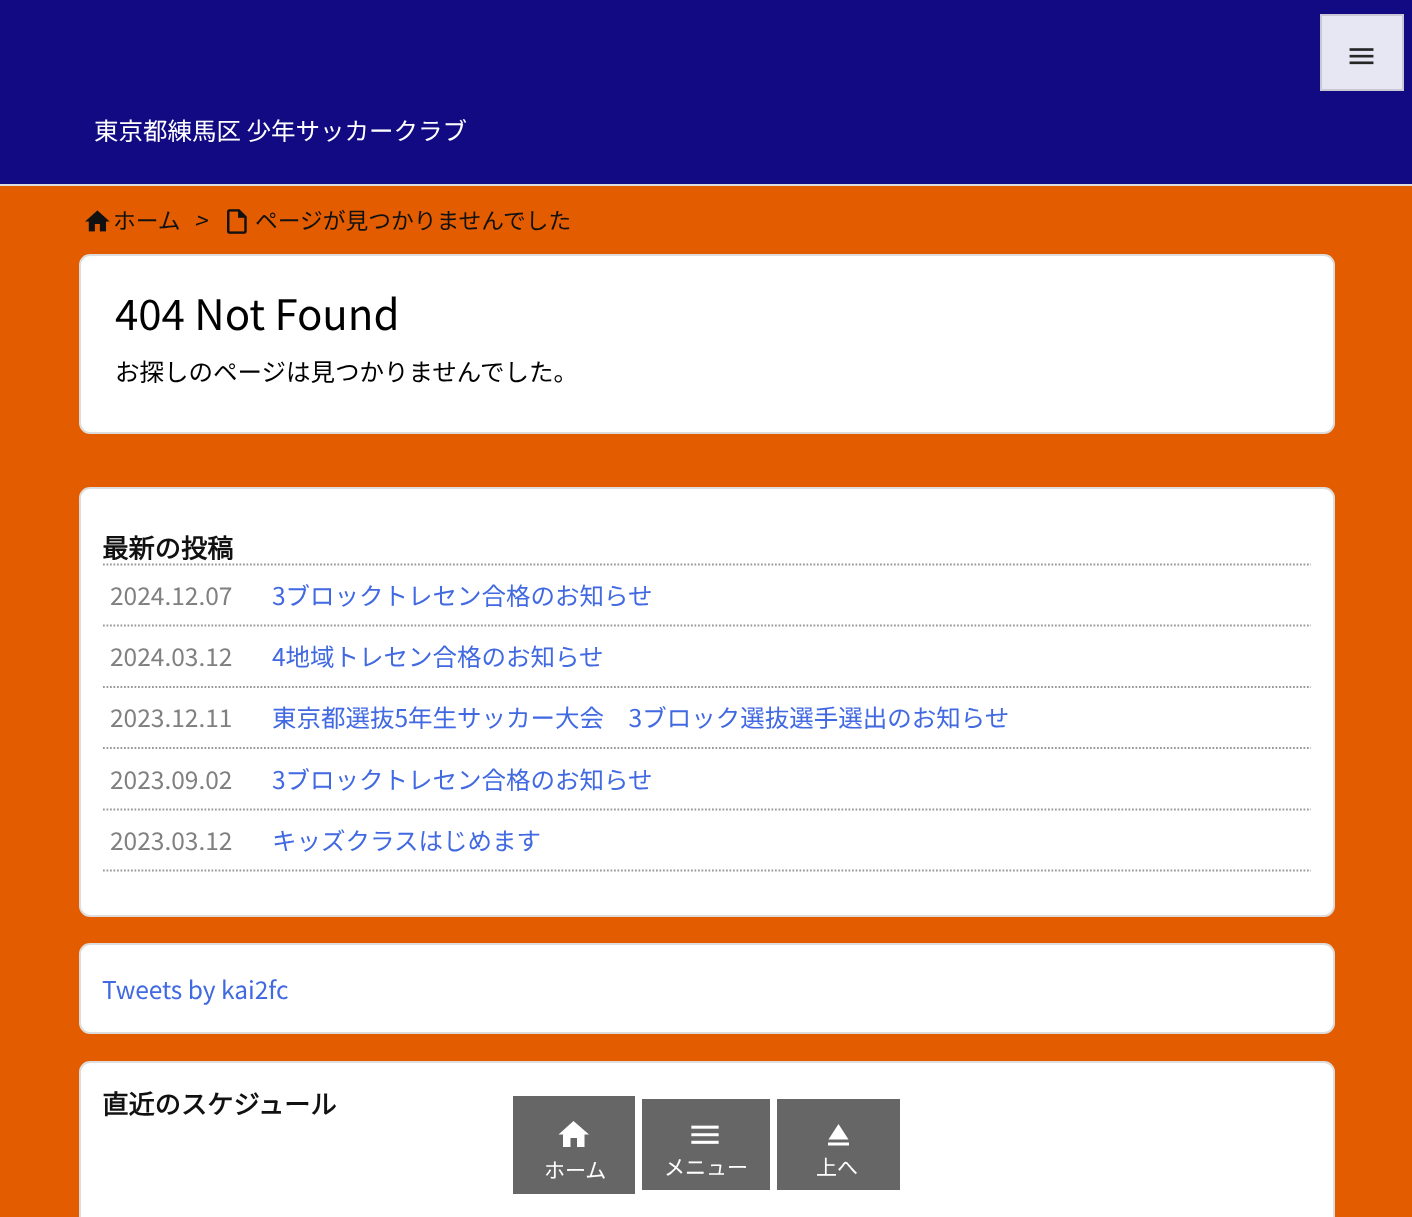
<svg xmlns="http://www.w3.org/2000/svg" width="1412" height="1217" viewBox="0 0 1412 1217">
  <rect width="100%" height="100%" fill="#e35d00"/>
  <rect x="0" y="184" width="1412" height="2" fill="#dddddd"/>
  <rect x="0" y="0" width="1412" height="184" fill="#120a82"/>
  <rect x="1321" y="15" width="82" height="75" fill="#e7e7f3" stroke="#c9c8d4" stroke-width="2"/>
  <image x="1349" y="48" width="25" height="17" href="img1.png"/>
  <text x="94" y="140" font-family="Noto Sans JP" font-size="24.5" font-weight="100" fill="#ffffff">東京都練馬区 少年サッカークラブ</text>
  <image x="85" y="210" width="25" height="22" href="img2.png"/>
  <text x="113" y="229" font-family="Noto Sans JP" font-size="22.75" font-weight="100" fill="#111111">ホーム</text>
  <text x="194" y="229" font-family="Noto Sans JP" font-size="22.75" font-weight="100" font-style="italic" fill="#111111">&gt;</text>
  <image x="227" y="209" width="20" height="25" href="img3.png"/>
  <text x="255" y="229" font-family="Noto Sans JP" font-size="22.75" font-weight="100" fill="#111111">ページが見つかりませんでした</text>
  <rect x="80" y="255" width="1254" height="178" rx="10" fill="#ffffff" stroke="#dddddd" stroke-width="2"/>
  <text x="115" y="330" font-family="Noto Sans JP" font-size="42" font-weight="100" fill="#000000">404 Not Found</text>
  <text x="115" y="381" font-family="Noto Sans JP" font-size="24.5" font-weight="100" fill="#000000">お探しのページは見つかりませんでした。</text>
  <rect x="80" y="488" width="1254" height="428" rx="10" fill="#ffffff" stroke="#dddddd" stroke-width="2"/>
  <text x="102" y="558" font-family="Noto Sans JP" font-size="26.25" font-weight="bold" fill="#111111">最新の投稿</text>
  <path d="M103 564.5H1311" fill="none" stroke="#999999" stroke-width="1.8" stroke-dasharray="1.75 1.75"/>
  <text x="110" y="605" font-family="Noto Sans JP" font-size="24.5" font-weight="100" fill="#808080">2024.12.07</text>
  <text x="272" y="605" font-family="Noto Sans JP" font-size="24.5" font-weight="100" fill="#4169e1">3ブロックトレセン合格のお知らせ</text>
  <path d="M103 625.5H1311" fill="none" stroke="#999999" stroke-width="1.8" stroke-dasharray="1.75 1.75"/>
  <text x="110" y="666" font-family="Noto Sans JP" font-size="24.5" font-weight="100" fill="#808080">2024.03.12</text>
  <text x="272" y="666" font-family="Noto Sans JP" font-size="24.5" font-weight="100" fill="#4169e1">4地域トレセン合格のお知らせ</text>
  <path d="M103 687H1311" fill="none" stroke="#999999" stroke-width="1.8" stroke-dasharray="1.75 1.75"/>
  <text x="110" y="727" font-family="Noto Sans JP" font-size="24.5" font-weight="100" fill="#808080">2023.12.11</text>
  <text x="272" y="727" font-family="Noto Sans JP" font-size="24.5" font-weight="100" fill="#4169e1">東京都選抜5年生サッカー大会　3ブロック選抜選手選出のお知らせ</text>
  <path d="M103 748H1311" fill="none" stroke="#999999" stroke-width="1.8" stroke-dasharray="1.75 1.75"/>
  <text x="110" y="789" font-family="Noto Sans JP" font-size="24.5" font-weight="100" fill="#808080">2023.09.02</text>
  <text x="272" y="789" font-family="Noto Sans JP" font-size="24.5" font-weight="100" fill="#4169e1">3ブロックトレセン合格のお知らせ</text>
  <path d="M103 809.5H1311" fill="none" stroke="#999999" stroke-width="1.8" stroke-dasharray="1.75 1.75"/>
  <text x="110" y="850" font-family="Noto Sans JP" font-size="24.5" font-weight="100" fill="#808080">2023.03.12</text>
  <text x="272" y="850" font-family="Noto Sans JP" font-size="24.5" font-weight="100" fill="#4169e1">キッズクラスはじめます</text>
  <path d="M103 870.5H1311" fill="none" stroke="#999999" stroke-width="1.8" stroke-dasharray="1.75 1.75"/>
  <rect x="80" y="944" width="1254" height="89" rx="10" fill="#ffffff" stroke="#dddddd" stroke-width="2"/>
  <text x="102" y="999" font-family="Noto Sans JP" font-size="24.5" font-weight="100" fill="#4169e1">Tweets by kai2fc</text>
  <rect x="80" y="1062" width="1254" height="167" rx="10" fill="#ffffff" stroke="#dddddd" stroke-width="2"/>
  <text x="102" y="1114" font-family="Noto Sans JP" font-size="26.25" font-weight="bold" fill="#111111">直近のスケジュール</text>
  <rect x="513" y="1096" width="122" height="98" fill="#666666"/>
  <path d="M570.5 1147H563V1134.5H558.5L573.5 1121L589 1134.5H584.5V1147H577V1138H570.5Z" fill="#ffffff"/>
  <text x="544" y="1178" font-family="Noto Sans JP" font-size="21" font-weight="100" fill="#ffffff">ホーム</text>
  <rect x="642" y="1099" width="128" height="91" fill="#666666"/>
  <image x="691" y="1125" width="28" height="19" href="img4.png"/>
  <text x="664" y="1175" font-family="Noto Sans JP" font-size="21" font-weight="100" fill="#ffffff">メニュー</text>
  <rect x="777" y="1099" width="123" height="91" fill="#666666"/>
  <path d="M838.5 1124L848.5 1139.5H828.5ZM828 1142.5H849V1145.5H828Z" fill="#ffffff"/>
  <text x="816" y="1175" font-family="Noto Sans JP" font-size="21" font-weight="100" fill="#ffffff">上へ</text>
</svg>
